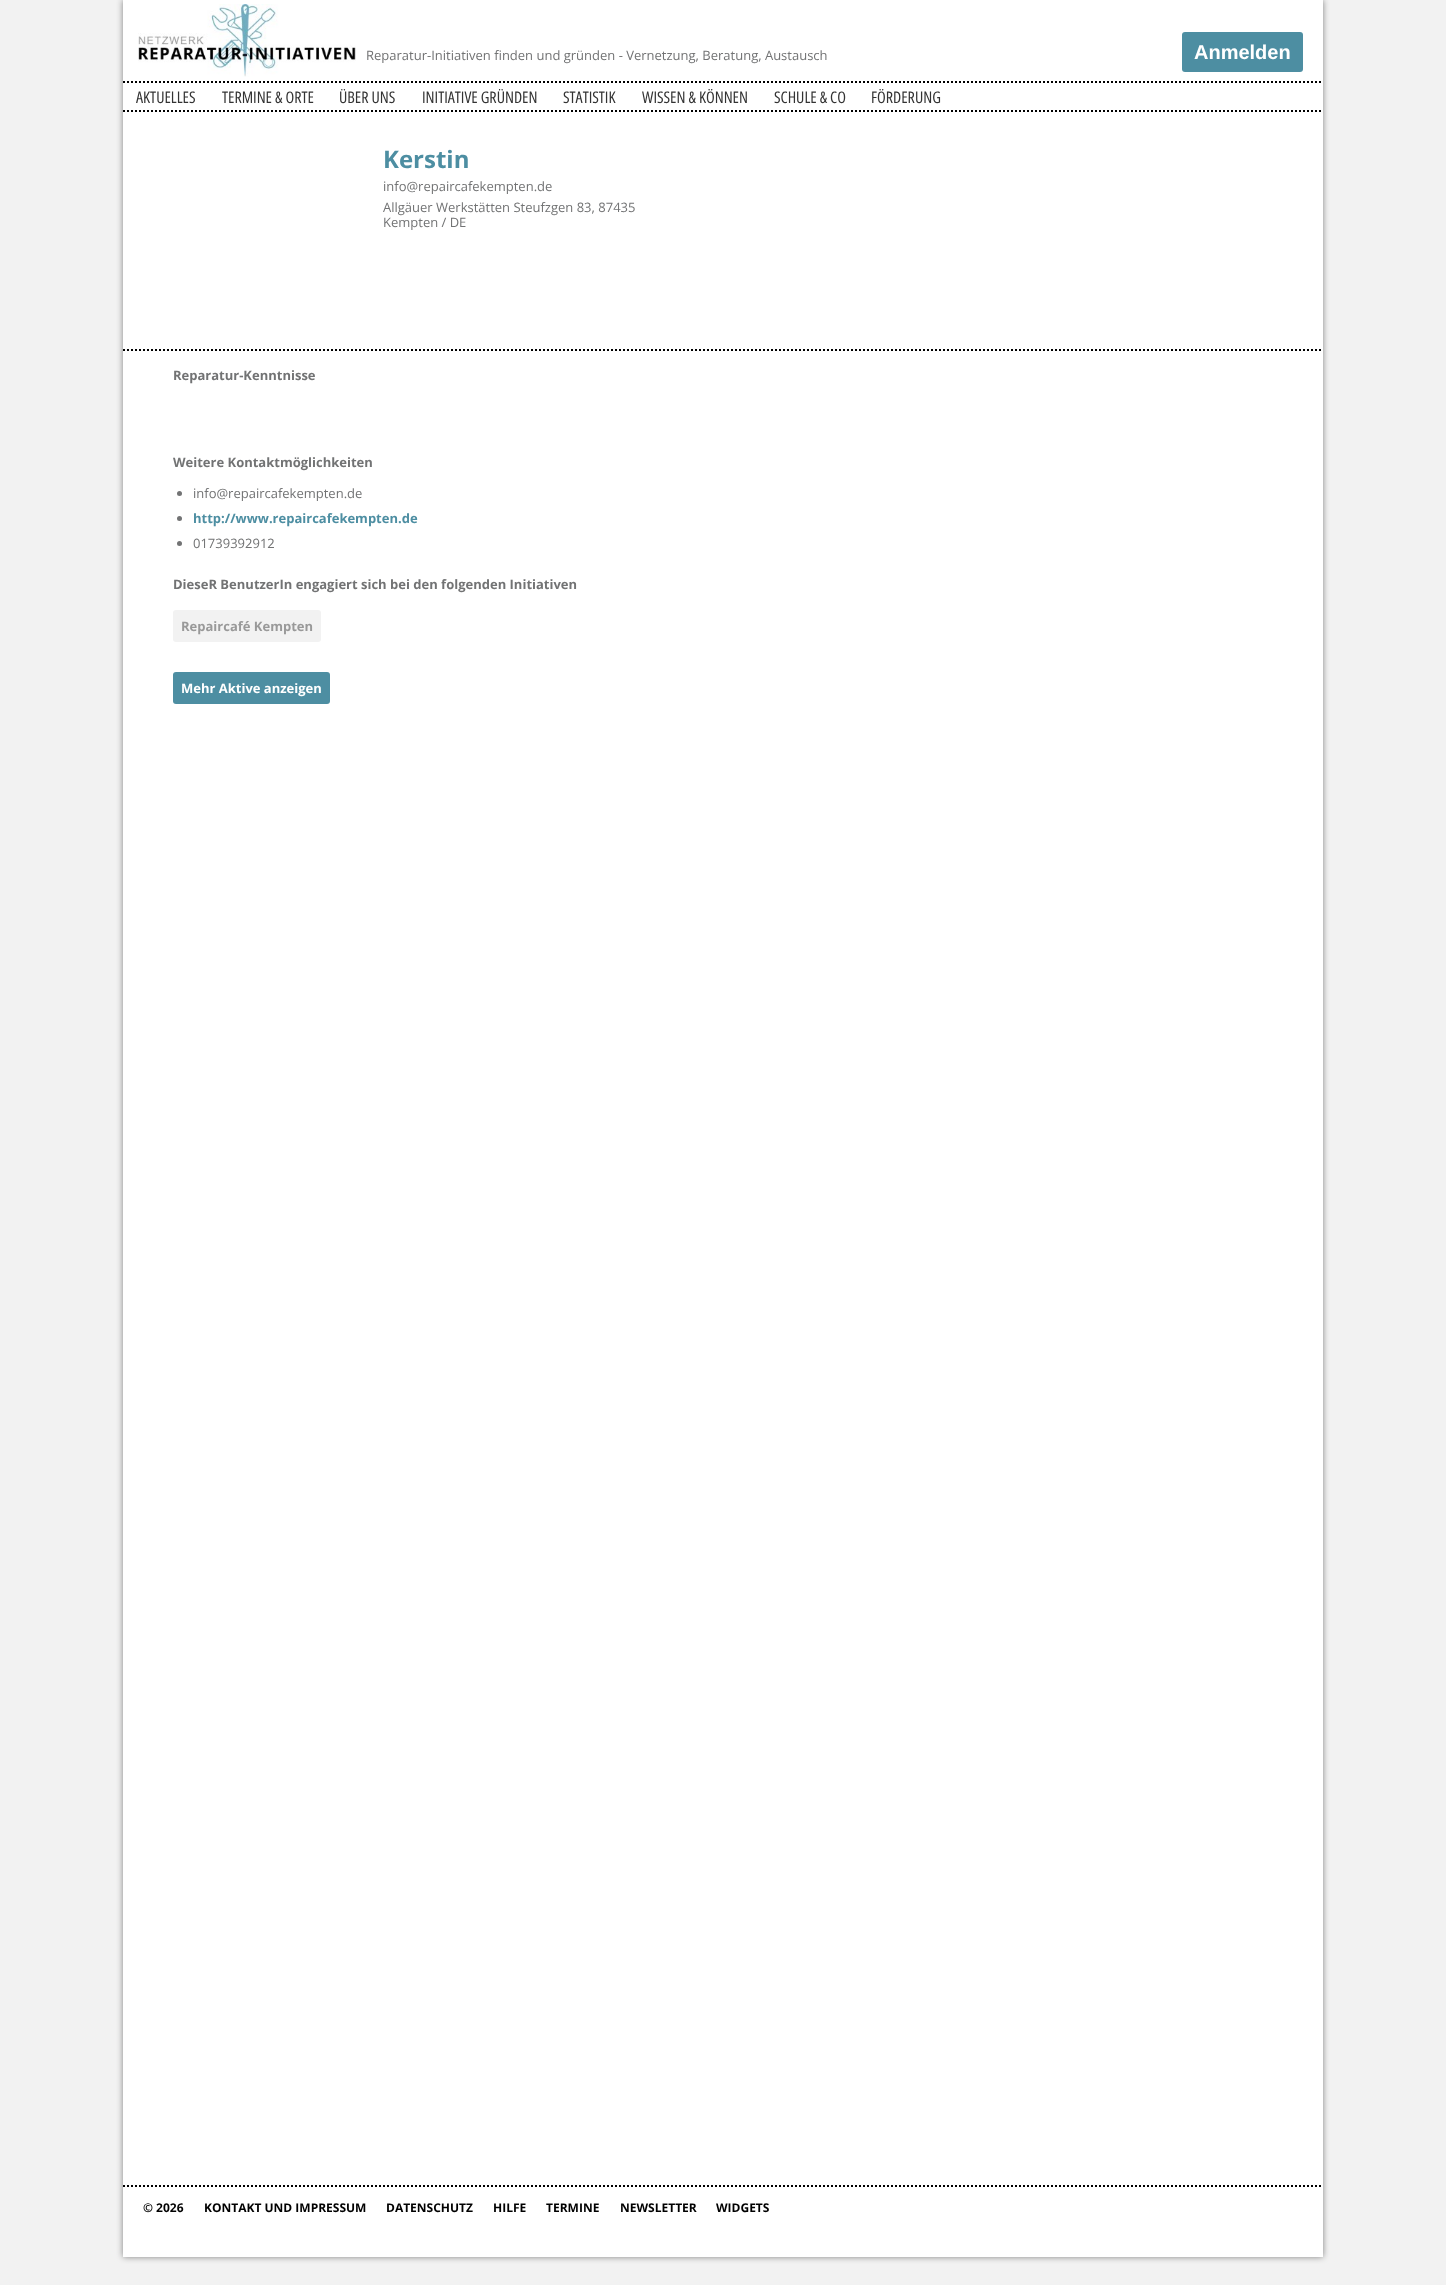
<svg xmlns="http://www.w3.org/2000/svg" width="1446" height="2285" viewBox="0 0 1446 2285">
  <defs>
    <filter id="blur1" x="-50%" y="-200%" width="200%" height="500%"><feGaussianBlur stdDeviation="3"/></filter>
  </defs>
  <rect width="100%" height="100%" fill="#f2f2f2"/>
  <rect x="123" y="0" width="1200" height="2257" fill="#000000" fill-opacity="0.47" filter="url(#blur1)"/>
  <rect x="123" y="0" width="1200" height="2257" fill="#ffffff"/>
  <image x="138" y="4" width="218" height="73" href="img1.png"/>
  <text x="366" y="60" font-family="Open Sans" font-size="13" fill="#727374">Reparatur-Initiativen finden und gründen - Vernetzung, Beratung, Austausch</text>
  <rect x="1182" y="32" width="121" height="40" rx="3" fill="#4d8ea2"/>
  <text x="1194" y="59" font-family="Liberation Sans" font-size="20" font-weight="bold" fill="#ffffff">Anmelden</text>
  <path d="M123 82H1323" fill="none" stroke="#000000" stroke-width="2" stroke-dasharray="2 2"/>
  <path d="M123 111H1323" fill="none" stroke="#000000" stroke-width="2" stroke-dasharray="2 2"/>
  <text x="136" y="103" font-family="'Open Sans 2'" font-size="16" fill="#333333">AKTUELLES</text>
  <text x="222" y="103" font-family="'Open Sans 2'" font-size="16" fill="#333333">TERMINE &amp; ORTE</text>
  <text x="339" y="103" font-family="'Open Sans 2'" font-size="16" fill="#333333">ÜBER UNS</text>
  <text x="422" y="103" font-family="'Open Sans 2'" font-size="16" fill="#333333">INITIATIVE GRÜNDEN</text>
  <text x="563" y="103" font-family="'Open Sans 2'" font-size="16" fill="#333333">STATISTIK</text>
  <text x="642" y="103" font-family="'Open Sans 2'" font-size="16" fill="#333333">WISSEN &amp; KÖNNEN</text>
  <text x="774" y="103" font-family="'Open Sans 2'" font-size="16" fill="#333333">SCHULE &amp; CO</text>
  <text x="871" y="103" font-family="'Open Sans 2'" font-size="16" fill="#333333">FÖRDERUNG</text>
  <text x="383" y="168" font-family="Open Sans" font-size="24" font-weight="bold" fill="#4d8ea2">Kerstin</text>
  <text x="383" y="191" font-family="Open Sans" font-size="13" fill="#727374">info@repaircafekempten.de</text>
  <text x="383" y="212" font-family="Open Sans" font-size="13" fill="#727374">Allgäuer Werkstätten Steufzgen 83, 87435</text>
  <text x="383" y="227" font-family="Open Sans" font-size="13" fill="#727374">Kempten / DE</text>
  <path d="M123 350H1323" fill="none" stroke="#000000" stroke-width="2" stroke-dasharray="2 2"/>
  <text x="173" y="380" font-family="Open Sans" font-size="13" font-weight="bold" fill="#727374">Reparatur-Kenntnisse</text>
  <text x="173" y="467" font-family="Open Sans" font-size="13" font-weight="bold" fill="#727374">Weitere Kontaktmöglichkeiten</text>
  <circle cx="179.5" cy="493.5" r="2.5" fill="#727374"/>
  <text x="193" y="498" font-family="Open Sans" font-size="13" fill="#727374">info@repaircafekempten.de</text>
  <circle cx="179.5" cy="518.5" r="2.5" fill="#727374"/>
  <text x="193" y="523" font-family="Open Sans" font-size="13" font-weight="bold" fill="#4d8ea2">http://www.repaircafekempten.de</text>
  <circle cx="179.5" cy="543.5" r="2.5" fill="#727374"/>
  <text x="193" y="548" font-family="Open Sans" font-size="13" fill="#727374">01739392912</text>
  <text x="173" y="589" font-family="Open Sans" font-size="13" font-weight="bold" fill="#727374">DieseR BenutzerIn engagiert sich bei den folgenden Initiativen</text>
  <rect x="173" y="610" width="148" height="32" rx="3" fill="#f2f2f2"/>
  <text x="181" y="631" font-family="Open Sans" font-size="13" font-weight="bold" fill="#999999">Repaircafé Kempten</text>
  <rect x="173" y="672" width="157" height="32" rx="3" fill="#4d8ea2"/>
  <text x="181" y="693" font-family="Open Sans" font-size="13" font-weight="bold" fill="#ffffff">Mehr Aktive anzeigen</text>
  <path d="M123 2186H1323" fill="none" stroke="#000000" stroke-width="2" stroke-dasharray="2 2"/>
  <text x="143" y="2212" font-family="Open Sans" font-size="12" font-weight="bold" fill="#000000">© 2026</text>
  <text x="204" y="2212" font-family="Open Sans" font-size="12" font-weight="bold" fill="#000000">KONTAKT UND IMPRESSUM</text>
  <text x="386" y="2212" font-family="Open Sans" font-size="12" font-weight="bold" fill="#000000">DATENSCHUTZ</text>
  <text x="493" y="2212" font-family="Open Sans" font-size="12" font-weight="bold" fill="#000000">HILFE</text>
  <text x="546" y="2212" font-family="Open Sans" font-size="12" font-weight="bold" fill="#000000">TERMINE</text>
  <text x="620" y="2212" font-family="Open Sans" font-size="12" font-weight="bold" fill="#000000">NEWSLETTER</text>
  <text x="716" y="2212" font-family="Open Sans" font-size="12" font-weight="bold" fill="#000000">WIDGETS</text>
</svg>
